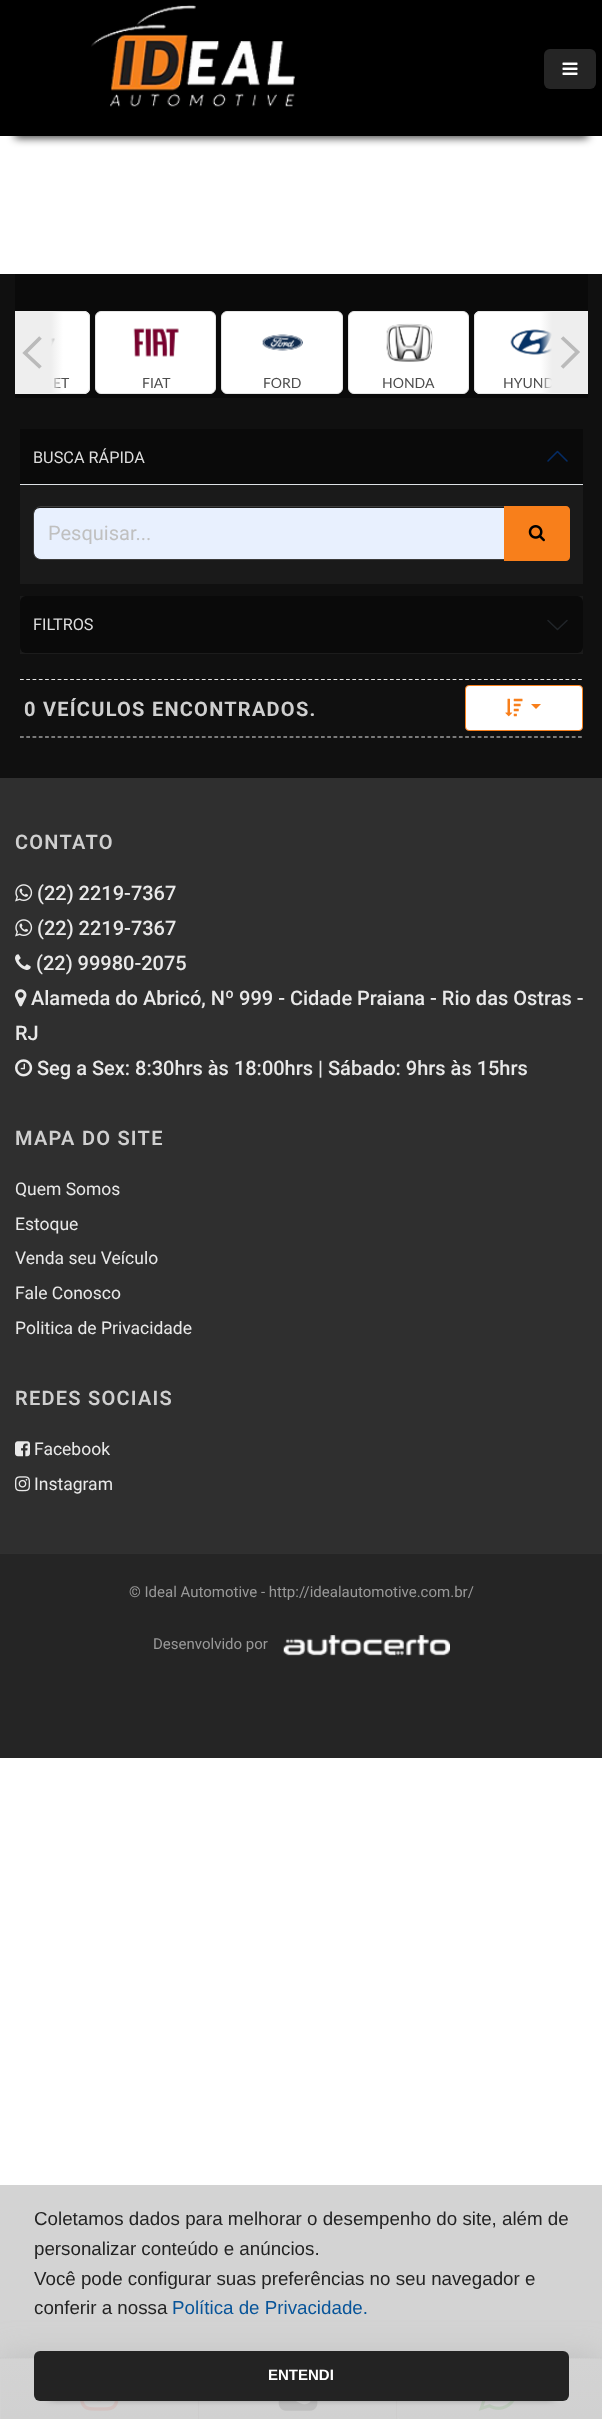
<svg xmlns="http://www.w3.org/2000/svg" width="602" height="2419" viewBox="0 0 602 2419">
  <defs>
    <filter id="blur1" x="-50%" y="-200%" width="200%" height="500%"><feGaussianBlur stdDeviation="4"/></filter>
    <clipPath id="clip1"><rect x="15" y="311" width="573" height="83"/></clipPath>
    <linearGradient id="g1" gradientUnits="userSpaceOnUse" x1="2.5" y1="353" x2="63" y2="353"><stop offset="0.8" stop-color="#eeeeee"/><stop offset="1" stop-color="#eeeeee" stop-opacity="0"/></linearGradient>
    <linearGradient id="g2" gradientUnits="userSpaceOnUse" x1="600" y1="353" x2="540" y2="353"><stop offset="0.8" stop-color="#eeeeee"/><stop offset="1" stop-color="#eeeeee" stop-opacity="0"/></linearGradient>
    <filter id="blur2" x="-50%" y="-200%" width="200%" height="500%"><feGaussianBlur stdDeviation="15"/></filter>
    <linearGradient id="g3" gradientUnits="userSpaceOnUse" x1="301" y1="2299" x2="301" y2="2359"><stop offset="0" stop-color="#d3d3d3"/><stop offset="0.47" stop-color="#d2d2d2"/><stop offset="1" stop-color="#d1d1d1"/></linearGradient>
    <linearGradient id="g4" gradientUnits="userSpaceOnUse" x1="301" y1="2359" x2="301" y2="2419"><stop offset="0" stop-color="#d3d3d3"/><stop offset="0.47" stop-color="#d2d2d2"/><stop offset="1" stop-color="#d1d1d1"/></linearGradient>
    <filter id="blur3" x="-50%" y="-200%" width="200%" height="500%"><feGaussianBlur stdDeviation="5"/></filter>
  </defs>
  <rect width="100%" height="100%" fill="#ffffff"/>
  <rect x="0" y="2185" width="602" height="173" fill="#d3d3d3"/>
  <rect x="15" y="31" width="573" height="107" fill="#000000" fill-opacity="0.75" filter="url(#blur1)"/>
  <rect x="0" y="0" width="602" height="136" fill="#000000"/>
  <image x="91" y="5" width="204" height="102" href="img1.png"/>
  <rect x="544" y="49" width="52" height="40" rx="6" fill="#252525"/>
  <image x="562" y="62" width="16" height="13" href="img2.png"/>
  <rect x="0" y="274" width="602" height="504" fill="#101010"/>
  <rect x="15" y="274" width="573" height="124" fill="#0a0a0a"/>
  <path d="M15 311H84C87.5 311 90 313.5 90 317V388C90 391.5 87.5 394 84 394H15Z" fill="#ffffff"/>
  <g clip-path="url(#clip1)">
    <rect x="-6.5" y="311.5" width="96" height="82" rx="5.5" fill="none" stroke="#e5e5e5"/>
  </g>
  <image x="51" y="337" width="4" height="10" href="img3.png"/>
  <text x="53" y="388" font-family="Lato" font-size="14" fill="#4d4d4d">ET</text>
  <rect x="15" y="311" width="48" height="83" fill="url(#g1)"/>
  <path d="M40.5 337.5L25 353L40.5 367.5" fill="none" stroke="#bababa" stroke-width="3.7"/>
  <rect x="95.5" y="311.5" width="120" height="82" rx="5.5" fill="#ffffff" stroke="#e5e5e5"/>
  <image x="133" y="328" width="46" height="29" href="img4.png"/>
  <text x="142" y="388" font-family="Lato" font-size="14" fill="#4d4d4d">FIAT</text>
  <rect x="221.5" y="311.5" width="121" height="82" rx="5.5" fill="#ffffff" stroke="#e5e5e5"/>
  <image x="262" y="334" width="41" height="17" href="img5.png"/>
  <text x="263" y="388" font-family="Lato" font-size="14" fill="#4d4d4d">FORD</text>
  <rect x="348.5" y="311.5" width="120" height="82" rx="5.5" fill="#ffffff" stroke="#e5e5e5"/>
  <image x="386" y="323" width="47" height="39" href="img6.png"/>
  <text x="382" y="388" font-family="Lato" font-size="14" fill="#4d4d4d">HONDA</text>
  <path d="M480 311H588V394H480C476.5 394 474 391.5 474 388V317C474 313.5 476.5 311 480 311Z" fill="#ffffff"/>
  <g clip-path="url(#clip1)">
    <rect x="474.5" y="311.5" width="120" height="82" rx="5.5" fill="none" stroke="#e5e5e5"/>
  </g>
  <image x="510" y="329" width="42" height="26" href="img7.png"/>
  <text x="503" y="388" font-family="Lato" font-size="14" fill="#4d4d4d">HYUND</text>
  <rect x="540" y="311" width="48" height="83" fill="url(#g2)"/>
  <path d="M562 367.5L577.5 352L562 337.5" fill="none" stroke="#bababa" stroke-width="3.7"/>
  <rect x="20" y="485" width="563" height="99" fill="#1a1a1a"/>
  <rect x="20" y="429" width="563" height="55" fill="#0a0a0a"/>
  <rect x="20" y="484" width="563" height="1" fill="#dee2e6"/>
  <text x="33" y="463" font-family="Roboto" font-size="16.25" fill="#dddddd">BUSCA RÁPIDA</text>
  <path d="M567 461L557.5 451.5L548 461" fill="none" stroke="#052c65" stroke-width="1.6" stroke-linecap="round" stroke-linejoin="round"/>
  <path d="M40 508H504V559H40C36.5 559 34 556.5 34 553V514C34 510.5 36.5 508 40 508Z" fill="#e8f0fe"/>
  <path d="M41 506.5H504.5V559.5H41C37 559.5 33.5 556 33.5 552V514C33.5 510 37 506.5 41 506.5Z" fill="none" stroke="#3b3b3b"/>
  <text x="48" y="540" font-family="Roboto" font-size="20" fill="#c0c0c0">Pesquisar...</text>
  <path d="M504 506H566C568 506 570 508 570 510V557C570 559 568 561 566 561H504Z" fill="#f87f1b"/>
  <image x="528" y="525" width="17" height="17" href="img8.png"/>
  <rect x="20" y="596" width="563" height="57" fill="#1a1a1a"/>
  <rect x="20" y="653" width="563" height="1" fill="#1c1c1c"/>
  <rect x="20" y="596" width="563" height="57" rx="6" fill="#0a0a0a"/>
  <text x="33" y="630" font-family="Roboto" font-size="16.25" fill="#dddddd">FILTROS</text>
  <path d="M548 620.5L557.5 629.5L567 620.5" fill="none" stroke="#212529" stroke-width="1.6" stroke-linecap="round" stroke-linejoin="round"/>
  <path d="M20 679.5H582.5" fill="none" stroke="#e4e4e4" stroke-width="1.2" stroke-dasharray="3.75 2.52"/>
  <path d="M20 737H582.5" fill="none" stroke="#e4e4e4" stroke-width="1.2" stroke-dasharray="3.75 2.52"/>
  <text x="24" y="716" font-family="Roboto" font-size="20" font-weight="bold" letter-spacing="1.25" fill="#cfcfcf">0 VEÍCULOS ENCONTRADOS.</text>
  <rect x="465.5" y="685.5" width="117" height="45" rx="3.5" fill="#ffffff" stroke="#f87f1b"/>
  <image x="505" y="698" width="18" height="19" href="img9.png"/>
  <path d="M531 704H541L536 709Z" fill="#f87f1b"/>
  <rect x="0" y="778" width="602" height="775" fill="#2f2f2f"/>
  <text x="15" y="849" font-family="Roboto" font-size="20" font-weight="600" letter-spacing="1.25" fill="#cfcfcf">CONTATO</text>
  <image x="15" y="884" width="18" height="18" href="img10.png"/>
  <text x="37" y="900" font-family="Roboto" font-size="20" font-weight="500" fill="#e9e9e9">(22) 2219-7367</text>
  <image x="15" y="919" width="18" height="18" href="img10.png"/>
  <text x="37" y="935" font-family="Roboto" font-size="20" font-weight="500" fill="#e9e9e9">(22) 2219-7367</text>
  <image x="15" y="954" width="16" height="16" href="img11.png"/>
  <text x="36" y="970" font-family="Roboto" font-size="20" font-weight="500" fill="#e9e9e9">(22) 99980-2075</text>
  <image x="15" y="989" width="12" height="18" href="img12.png"/>
  <text x="31" y="1005" font-family="Roboto" font-size="20" font-weight="500" fill="#e9e9e9">Alameda do Abricó, Nº 999 - Cidade Praiana - Rio das Ostras -</text>
  <text x="15" y="1040" font-family="Roboto" font-size="20" font-weight="500" fill="#e9e9e9">RJ</text>
  <image x="15" y="1059" width="18" height="18" href="img13.png"/>
  <text x="37" y="1075" font-family="Roboto" font-size="20" font-weight="500" fill="#e9e9e9">Seg a Sex: 8:30hrs às 18:00hrs | Sábado: 9hrs às 15hrs</text>
  <text x="15" y="1145" font-family="Roboto" font-size="20" font-weight="600" letter-spacing="1.25" fill="#cfcfcf">MAPA DO SITE</text>
  <text x="15" y="1195" font-family="Roboto" font-size="17.5" fill="#e9e9e9">Quem Somos</text>
  <text x="15" y="1230" font-family="Roboto" font-size="17.5" fill="#e9e9e9">Estoque</text>
  <text x="15" y="1264" font-family="Roboto" font-size="17.5" fill="#e9e9e9">Venda seu Veículo</text>
  <text x="15" y="1299" font-family="Roboto" font-size="17.5" fill="#e9e9e9">Fale Conosco</text>
  <text x="15" y="1334" font-family="Roboto" font-size="17.5" fill="#e9e9e9">Politica de Privacidade</text>
  <text x="15" y="1405" font-family="Roboto" font-size="20" font-weight="600" letter-spacing="1.25" fill="#cfcfcf">REDES SOCIAIS</text>
  <image x="15" y="1441" width="15" height="16" href="img14.png"/>
  <text x="34" y="1455" font-family="Roboto" font-size="17.5" fill="#e9e9e9">Facebook</text>
  <image x="15" y="1476" width="15" height="16" href="img15.png"/>
  <text x="34" y="1490" font-family="Roboto" font-size="17.5" fill="#e9e9e9">Instagram</text>
  <rect x="0" y="1554" width="602" height="204" fill="#252525"/>
  <rect x="0" y="1553" width="602" height="1" fill="#303030"/>
  <text x="129" y="1597" font-family="Roboto" font-size="15" fill="#999999">© Ideal Automotive - http://idealautomotive.com.br/</text>
  <text x="153" y="1649" font-family="Roboto" font-size="15" fill="#999999">Desenvolvido por</text>
  <image x="283" y="1635" width="167" height="21" href="img16.png"/>
  <rect x="3" y="2355" width="597" height="58" fill="#b9b9b9" fill-opacity="0.75" filter="url(#blur2)"/>
  <rect x="0" y="2358" width="602" height="1" fill="url(#g3)"/>
  <rect x="1" y="2359" width="601" height="60" fill="url(#g4)"/>
  <path d="M0 2358H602.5" fill="none" stroke="#c9c9c9" stroke-width="1.2" stroke-dasharray="1.25 1.25"/>
  <path d="M0 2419.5H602.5" fill="none" stroke="#c9c9c9" stroke-width="1.2" stroke-dasharray="1.25 1.25"/>
  <rect x="198" y="2401" width="1" height="18" fill="#cecdcd"/>
  <rect x="0" y="2359" width="1" height="60" fill="#d3d3d3"/>
  <image x="80" y="2401" width="39" height="10" href="img17.png"/>
  <rect x="396" y="2401" width="1" height="18" fill="#cecdcd"/>
  <image x="278" y="2401" width="40" height="10" href="img18.png"/>
  <rect x="398" y="2418" width="1" height="1" fill="#d3d3d3"/>
  <image x="478" y="2401" width="37" height="10" href="img19.png"/>
  <text x="34" y="2225" font-family="Liberation Sans" font-size="18.75" fill="#232323">Coletamos dados para melhorar o desempenho do site, além de</text>
  <text x="34" y="2255" font-family="Liberation Sans" font-size="18.75" fill="#232323">personalizar conteúdo e anúncios.</text>
  <text x="34" y="2285" font-family="Liberation Sans" font-size="18.75" fill="#232323">Você pode configurar suas preferências no seu navegador e</text>
  <text x="34" y="2314" font-family="Liberation Sans" font-size="18.75" fill="#232323">conferir a nossa</text>
  <text x="172" y="2314" font-family="Liberation Sans" font-size="18.75" fill="#075499">Política de Privacidade.</text>
  <rect x="49" y="2376" width="505" height="20" fill="#000000" filter="url(#blur3)"/>
  <rect x="34" y="2351" width="535" height="50" rx="6" fill="#232323"/>
  <text x="268" y="2380" font-family="Liberation Sans" font-size="15" font-weight="bold" fill="#ffffff">ENTENDI</text>
</svg>
